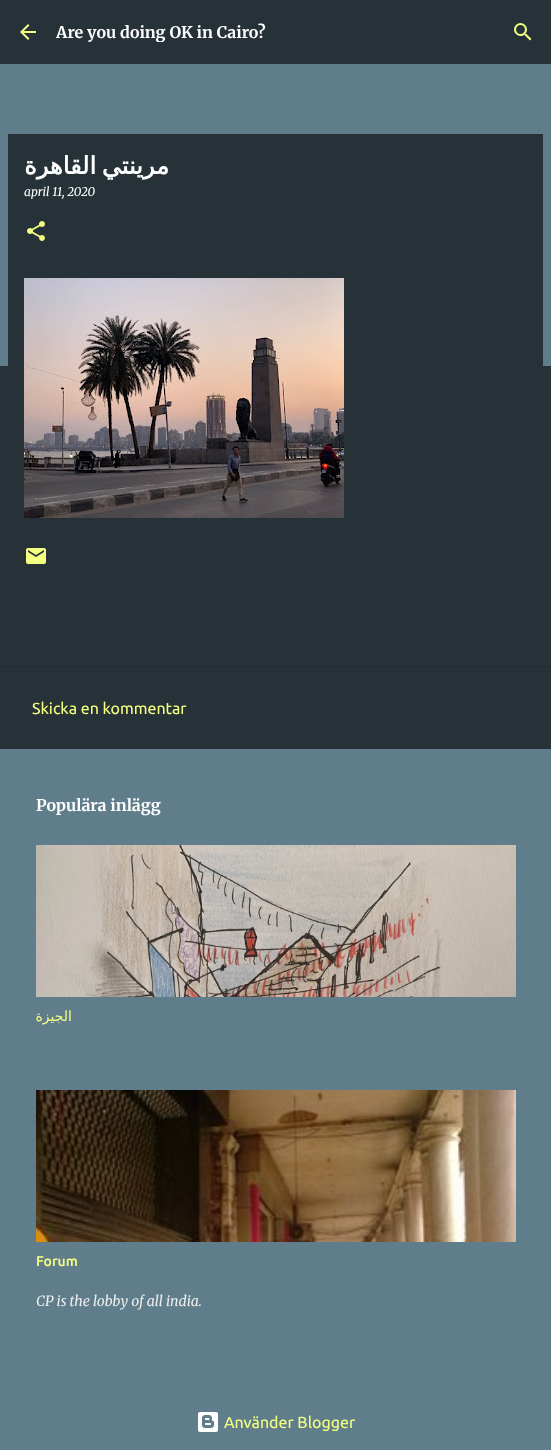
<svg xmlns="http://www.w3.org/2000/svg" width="551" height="1450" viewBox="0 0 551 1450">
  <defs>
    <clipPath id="clip1"><rect x="56" y="22" width="439" height="20"/></clipPath>
  </defs>
  <rect width="100%" height="100%" fill="#607d8b"/>
  <rect x="0" y="0" width="551" height="64" fill="#263238"/>
  <image x="20" y="24" width="16" height="16" href="img1.png"/>
  <g clip-path="url(#clip1)">
    <text x="56" y="38" font-family="Merriweather" font-size="16" font-weight="bold" fill="#ffffff">Are you doing OK in Cairo?</text>
  </g>
  <image x="514" y="23" width="18" height="18" href="img2.png"/>
  <rect x="0" y="366" width="551" height="300" fill="#263238"/>
  <rect x="8" y="134" width="535" height="232" fill="#263238"/>
  <text x="169" y="174" word-spacing="-2" font-family="DejaVu Sans" font-size="24" font-weight="bold" direction="rtl" fill="#ffffff">مرينتي القاهرة</text>
  <text x="24" y="196" font-family="Merriweather" font-size="12" font-style="italic" fill="#ffffff">april 11, 2020</text>
  <image x="27" y="221" width="18" height="20" href="img3.png"/>
  <image x="24" y="278" width="320" height="240" href="img4.png"/>
  <image x="26" y="548" width="20" height="16" href="img5.png"/>
  <rect x="0" y="667" width="551" height="82" fill="#263238"/>
  <rect x="0" y="666" width="551" height="1" fill="#212c31"/>
  <text x="32" y="714" font-family="Ubuntu" font-size="16" fill="#f4ff81">Skicka en kommentar</text>
  <text x="36" y="811" font-family="Merriweather" font-size="16" font-weight="bold" fill="#ffffff">Populära inlägg</text>
  <image x="36" y="845" width="480" height="152" href="img6.png"/>
  <text x="72" y="1021" font-family="DejaVu Sans" font-size="14" direction="rtl" fill="#f4ff81">الجيزة</text>
  <image x="36" y="1090" width="480" height="152" href="img7.png"/>
  <text x="36" y="1266" font-family="Ubuntu" font-size="14" font-weight="500" fill="#f4ff81">Forum</text>
  <text x="36" y="1306" font-family="Merriweather" font-size="14" font-style="italic" fill="#eeeeee">CP is the lobby of all india.</text>
  <image x="198" y="1412" width="20" height="20" href="img8.png"/>
  <text x="224" y="1428" font-family="Ubuntu" font-size="16" fill="#f4ff81">Använder Blogger</text>
</svg>
